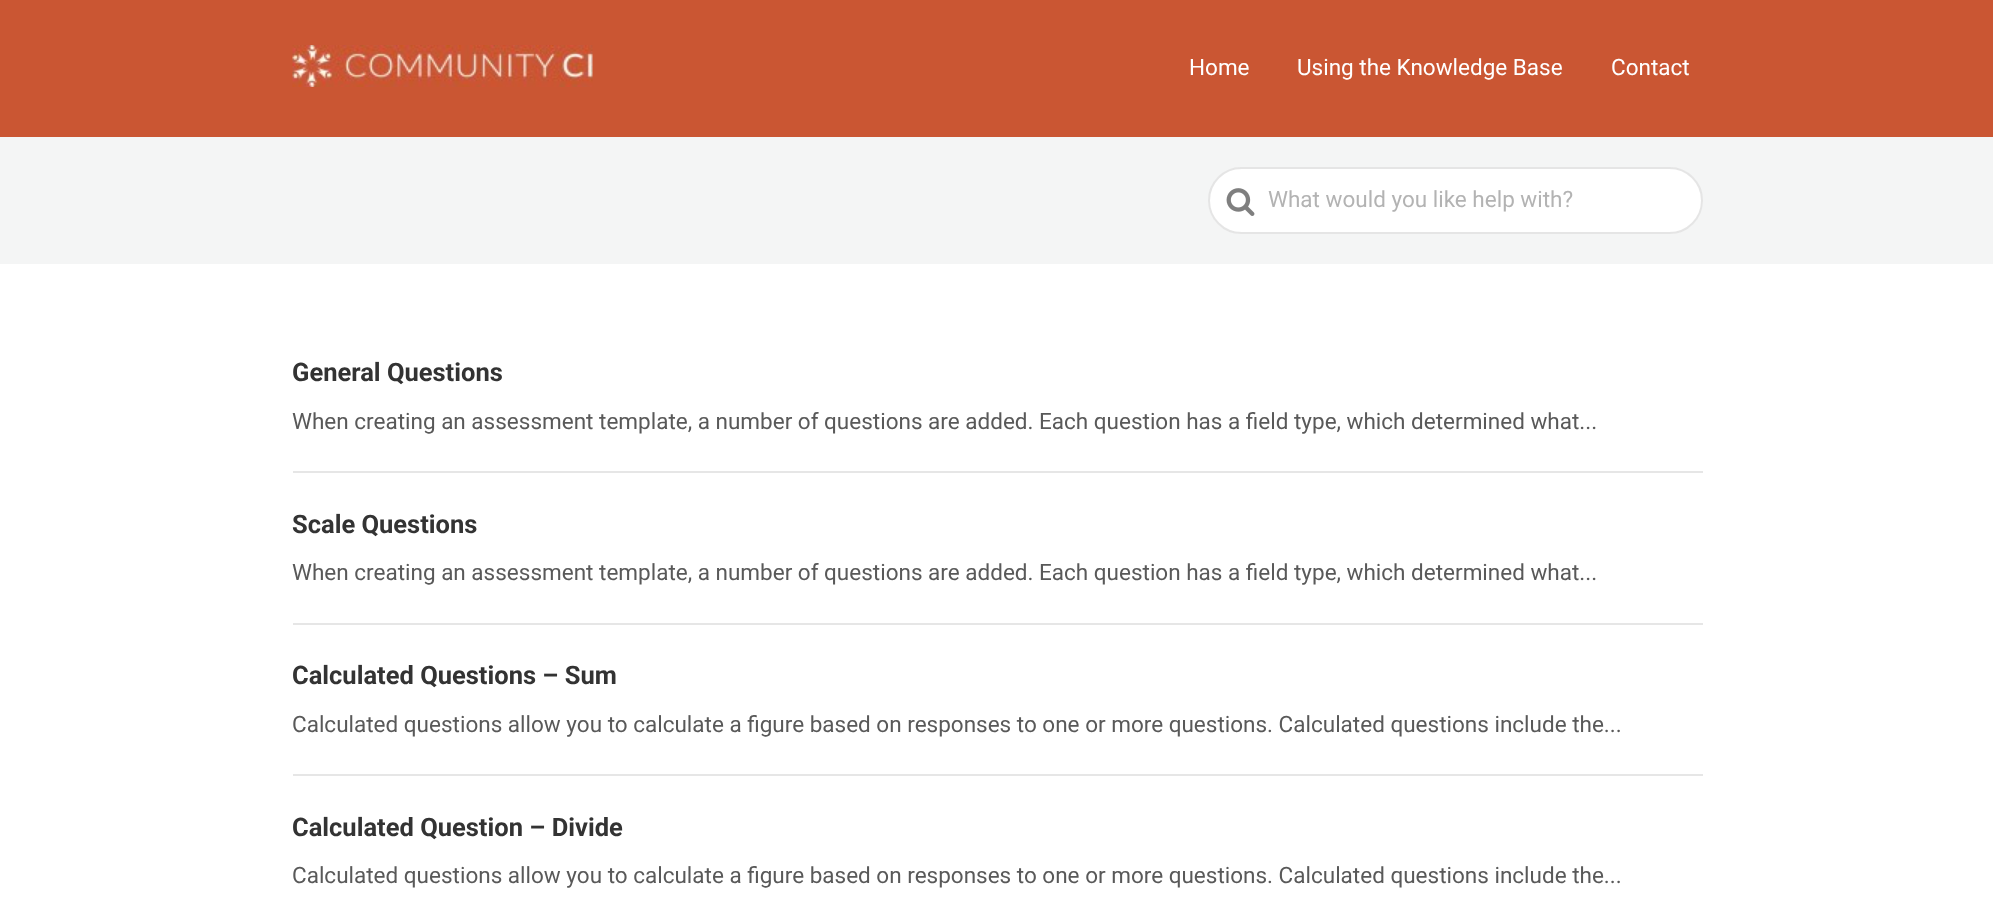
<svg xmlns="http://www.w3.org/2000/svg" width="1993" height="898" viewBox="0 0 1993 898">
  <rect width="100%" height="100%" fill="#ffffff"/>
  <rect x="0" y="0" width="1993" height="137" fill="#ca5633"/>
  <image x="292" y="45" width="301" height="42" href="img1.png"/>
  <text x="1189" y="75" font-family="Roboto" font-size="22.5" fill="#ffffff">Home</text>
  <text x="1297" y="75" font-family="Roboto" font-size="22.5" fill="#ffffff">Using the Knowledge Base</text>
  <text x="1611" y="75" font-family="Roboto" font-size="22.5" fill="#ffffff">Contact</text>
  <rect x="0" y="137" width="1993" height="127" fill="#f4f5f5"/>
  <rect x="1208" y="167" width="495" height="67" rx="33.5" fill="#ffffff"/>
  <rect x="1209" y="168" width="493" height="65" rx="32.5" fill="none" stroke="#cccccc" stroke-opacity="0.5" stroke-width="2"/>
  <image x="1226" y="188" width="29" height="28" href="img2.png"/>
  <text x="1268" y="207" font-family="Roboto" font-size="22.5" fill="#b3b3b3">What would you like help with?</text>
  <rect x="293" y="471" width="1410" height="2" fill="#e6e6e6"/>
  <text x="292" y="381" font-family="Roboto" font-size="25.5" font-weight="bold" fill="#333333">General Questions</text>
  <text x="292" y="429" font-family="Roboto" font-size="22.5" fill="#595959">When creating an assessment template, a number of questions are added. Each question has a field type, which determined what...</text>
  <rect x="293" y="623" width="1410" height="2" fill="#e6e6e6"/>
  <text x="292" y="533" font-family="Roboto" font-size="25.5" font-weight="bold" fill="#333333">Scale Questions</text>
  <text x="292" y="580" font-family="Roboto" font-size="22.5" fill="#595959">When creating an assessment template, a number of questions are added. Each question has a field type, which determined what...</text>
  <rect x="293" y="774" width="1410" height="2" fill="#e6e6e6"/>
  <text x="292" y="684" font-family="Roboto" font-size="25.5" font-weight="bold" fill="#333333">Calculated Questions – Sum</text>
  <text x="292" y="732" font-family="Roboto" font-size="22.5" fill="#595959">Calculated questions allow you to calculate a figure based on responses to one or more questions. Calculated questions include the...</text>
  <text x="292" y="836" font-family="Roboto" font-size="25.5" font-weight="bold" fill="#333333">Calculated Question – Divide</text>
  <text x="292" y="883" font-family="Roboto" font-size="22.5" fill="#595959">Calculated questions allow you to calculate a figure based on responses to one or more questions. Calculated questions include the...</text>
</svg>
